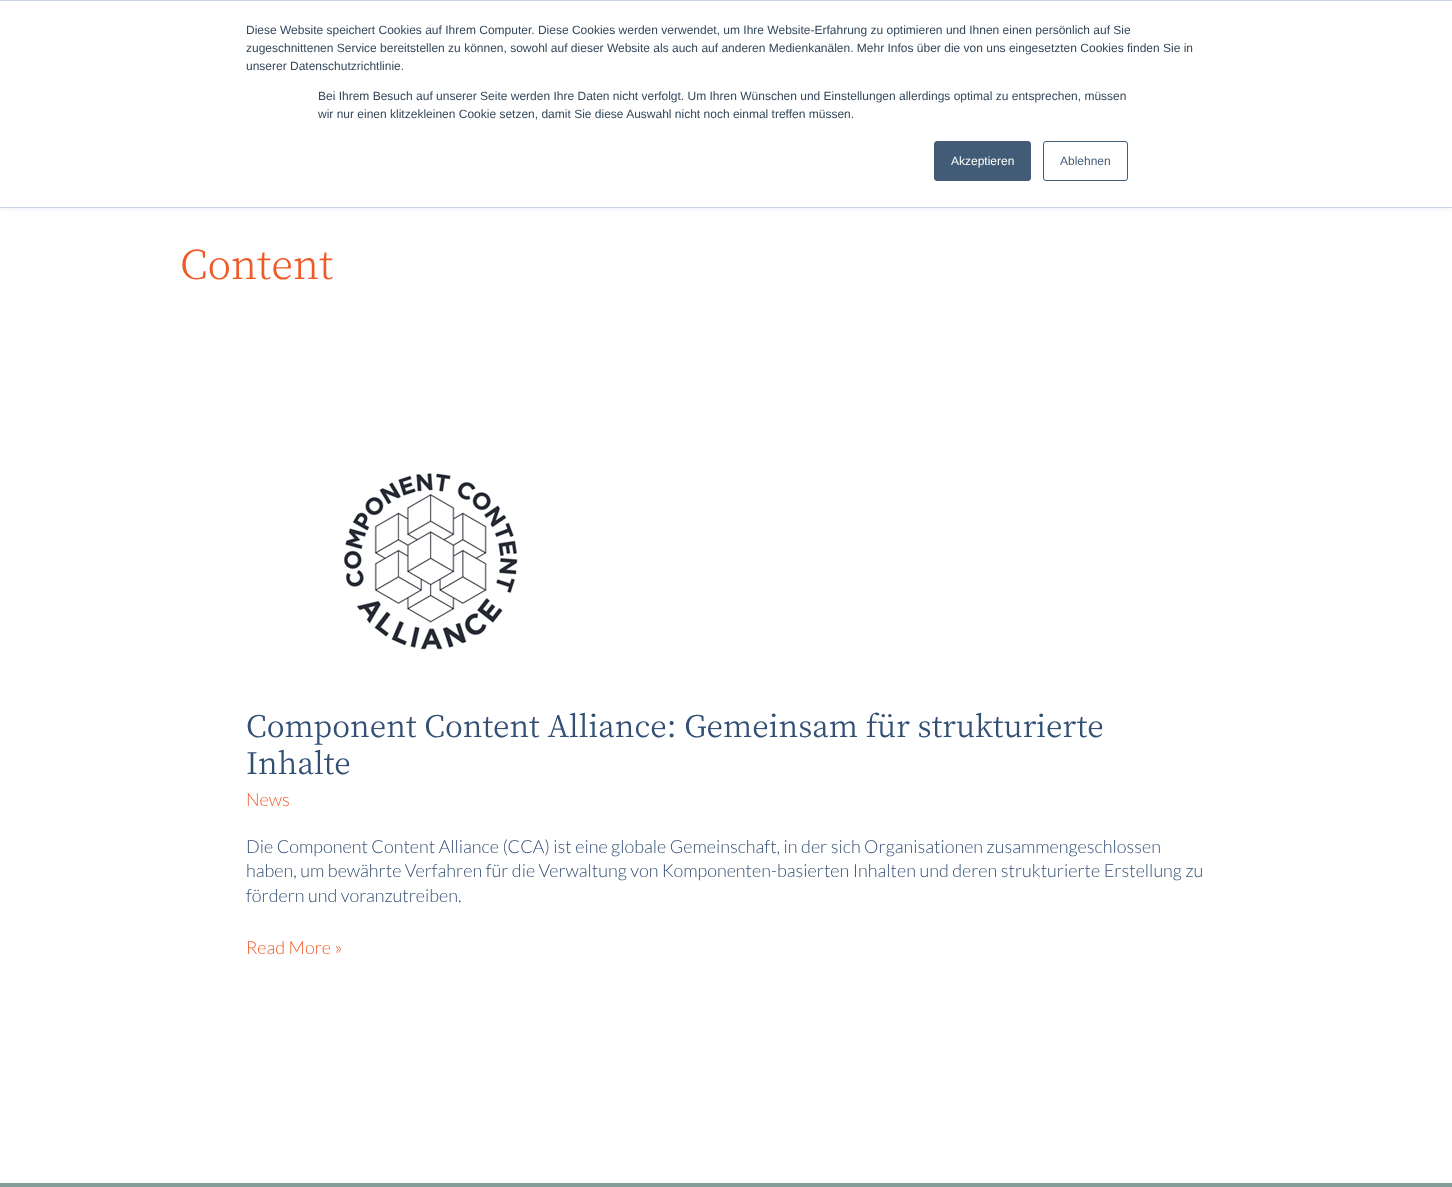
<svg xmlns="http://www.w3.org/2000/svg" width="1452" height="1187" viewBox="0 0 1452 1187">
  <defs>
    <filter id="blur1" x="-50%" y="-200%" width="200%" height="500%"><feGaussianBlur stdDeviation="2.5"/></filter>
  </defs>
  <rect width="100%" height="100%" fill="#ffffff"/>
  <rect x="0" y="1" width="1452" height="208" fill="#eaf0f6" filter="url(#blur1)"/>
  <rect x="0" y="1" width="1452" height="206" fill="#ffffff"/>
  <rect x="0" y="0" width="1452" height="1" fill="#cbd6e2"/>
  <rect x="0" y="207" width="1452" height="1" fill="#cbd6e2"/>
  <text x="246" y="34" font-family="Liberation Sans" font-size="12" fill="#33475b">Diese Website speichert Cookies auf Ihrem Computer. Diese Cookies werden verwendet, um Ihre Website-Erfahrung zu optimieren und Ihnen einen persönlich auf Sie</text>
  <text x="246" y="52" font-family="Liberation Sans" font-size="12" fill="#33475b">zugeschnittenen Service bereitstellen zu können, sowohl auf dieser Website als auch auf anderen Medienkanälen. Mehr Infos über die von uns eingesetzten Cookies finden Sie in</text>
  <text x="246" y="70" font-family="Liberation Sans" font-size="12" fill="#33475b">unserer Datenschutzrichtlinie.</text>
  <text x="318" y="100" font-family="Liberation Sans" font-size="12" fill="#33475b">Bei Ihrem Besuch auf unserer Seite werden Ihre Daten nicht verfolgt. Um Ihren Wünschen und Einstellungen allerdings optimal zu entsprechen, müssen</text>
  <text x="318" y="118" font-family="Liberation Sans" font-size="12" fill="#33475b">wir nur einen klitzekleinen Cookie setzen, damit Sie diese Auswahl nicht noch einmal treffen müssen.</text>
  <rect x="934.5" y="141.5" width="96" height="39" rx="2.5" fill="#425b76" stroke="#425b76"/>
  <text x="951" y="165" font-family="Liberation Sans" font-size="12" fill="#ffffff">Akzeptieren</text>
  <rect x="1043.5" y="141.5" width="84" height="39" rx="2.5" fill="none" stroke="#425b76"/>
  <text x="1060" y="165" font-family="Liberation Sans" font-size="12" fill="#425b76">Ablehnen</text>
  <text x="180" y="279" font-family="Noto Serif JP" font-size="40" font-weight="300" fill="#f05a28">Content</text>
  <image x="343" y="473" width="175" height="177" href="img1.png"/>
  <text x="246" y="737" font-family="Noto Serif JP" font-size="30" fill="#334f74">Component Content Alliance: Gemeinsam für strukturierte</text>
  <text x="246" y="774" font-family="Noto Serif JP" font-size="30" fill="#334f74">Inhalte</text>
  <text x="246" y="806" font-family="Lato" font-size="18" font-weight="300" fill="#f05a28">News</text>
  <text x="246" y="853" font-family="Lato" font-size="18" font-weight="300" fill="#334f74">Die Component Content Alliance (CCA) ist eine globale Gemeinschaft, in der sich Organisationen zusammengeschlossen</text>
  <text x="246" y="877" font-family="Lato" font-size="18" font-weight="300" fill="#334f74">haben, um bewährte Verfahren für die Verwaltung von Komponenten-basierten Inhalten und deren strukturierte Erstellung zu</text>
  <text x="246" y="902" font-family="Lato" font-size="18" font-weight="300" fill="#334f74">fördern und voranzutreiben.</text>
  <text x="246" y="954" font-family="Lato" font-size="18" font-weight="300" fill="#f05a28">Read More »</text>
  <rect x="0" y="1183" width="1452" height="4" fill="#849d96"/>
</svg>
